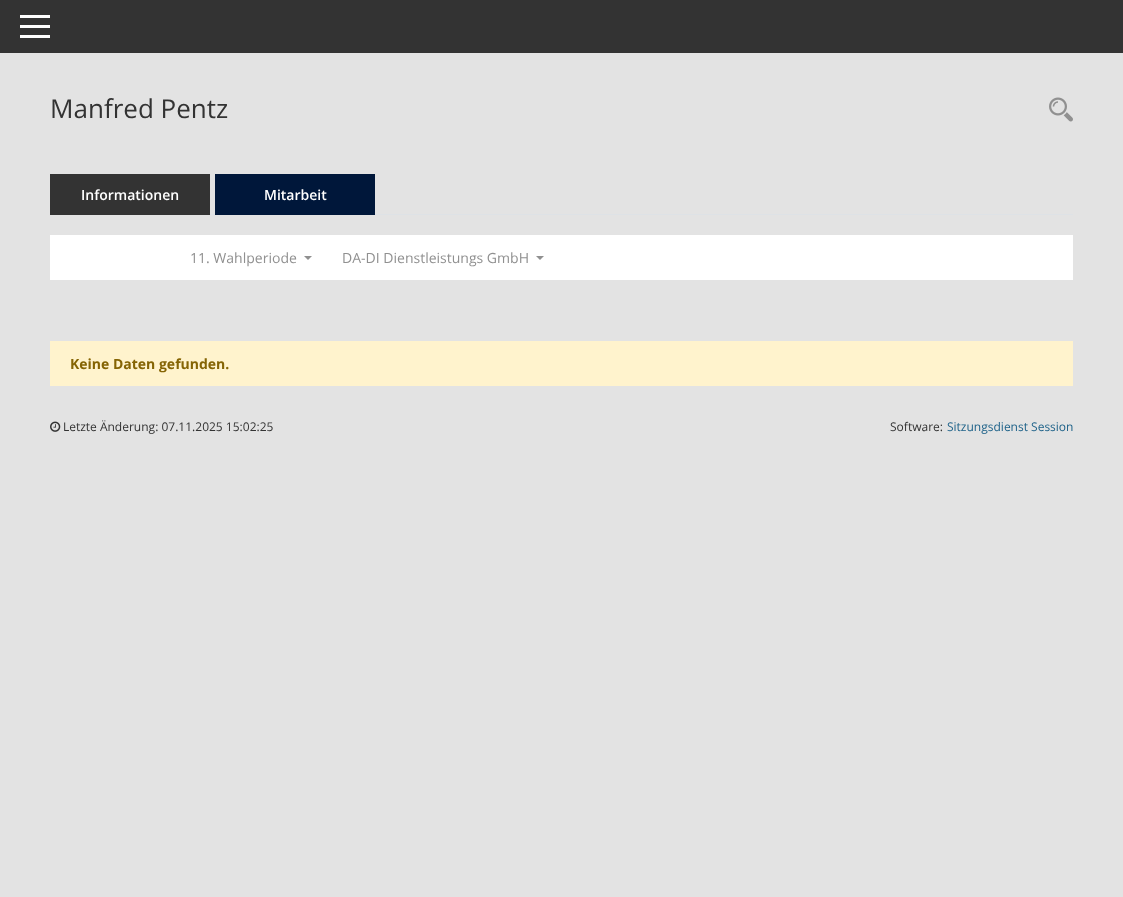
<svg xmlns="http://www.w3.org/2000/svg" width="1123" height="897" viewBox="0 0 1123 897">
  <rect width="100%" height="100%" fill="#e3e3e3"/>
  <rect x="0" y="0" width="1123" height="53" fill="#333333"/>
  <rect x="20" y="15" width="30" height="3" fill="#ffffff"/>
  <rect x="20" y="25" width="30" height="3" fill="#ffffff"/>
  <rect x="20" y="35" width="30" height="3" fill="#ffffff"/>
  <text x="50" y="118" font-family="Open Sans" font-size="26" fill="#333333">Manfred Pentz</text>
  <image x="1049" y="97" width="24" height="25" href="img1.png"/>
  <rect x="210" y="214" width="863" height="1" fill="#dee2e6"/>
  <rect x="50" y="174" width="160" height="41" fill="#333333"/>
  <text x="81" y="200" font-family="Open Sans" font-size="14" font-weight="600" fill="#ffffff">Informationen</text>
  <rect x="215" y="174" width="160" height="41" fill="#00173a"/>
  <text x="264" y="200" font-family="Open Sans" font-size="14" font-weight="600" fill="#ffffff">Mitarbeit</text>
  <rect x="50" y="235" width="1023" height="45" fill="#ffffff"/>
  <text x="190" y="263" font-family="Open Sans" font-size="14" fill="#909090">11. Wahlperiode</text>
  <path d="M304 256H312L308 260Z" fill="#909090"/>
  <text x="342" y="263" font-family="Open Sans" font-size="14" fill="#909090">DA-DI Dienstleistungs GmbH</text>
  <path d="M536 256H544L540 260Z" fill="#909090"/>
  <rect x="50" y="341" width="1023" height="45" fill="#fff3cd"/>
  <text x="70" y="369" font-family="Open Sans" font-size="14" font-weight="bold" fill="#856404">Keine Daten gefunden.</text>
  <image x="50" y="421" width="11" height="11" href="img2.png"/>
  <text x="63" y="431" font-family="Open Sans" font-size="12" fill="#333333">Letzte Änderung: 07.11.2025 15:02:25</text>
  <text x="890" y="431" font-family="Open Sans" font-size="12" fill="#333333">Software:</text>
  <text x="947" y="431" font-family="Open Sans" font-size="12" fill="#1e6289">Sitzungsdienst Session</text>
</svg>
